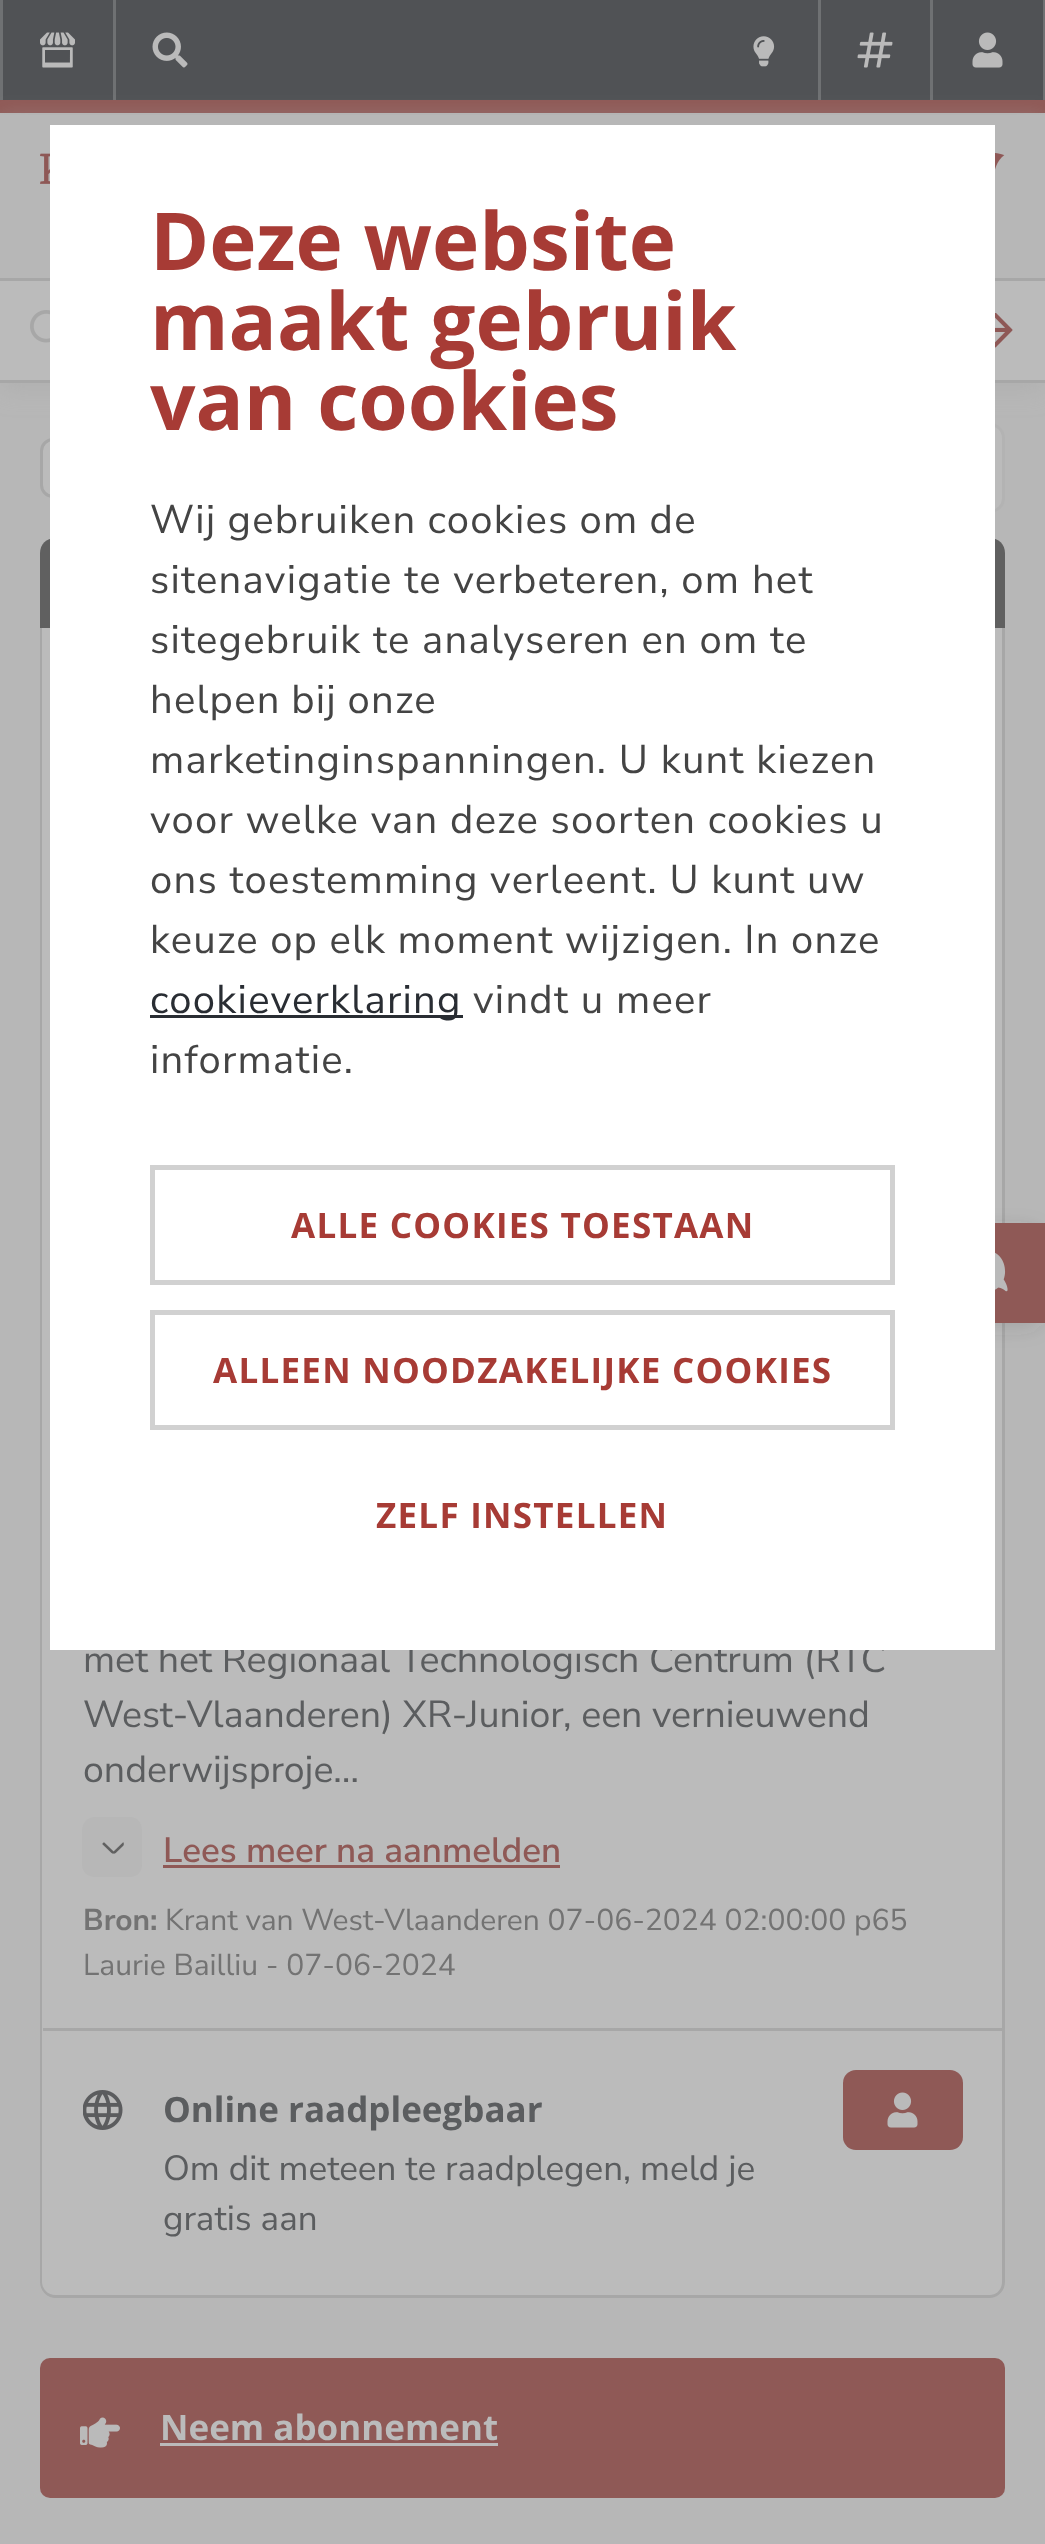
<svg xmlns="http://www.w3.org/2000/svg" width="1045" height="2544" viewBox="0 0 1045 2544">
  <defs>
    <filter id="blur1" x="-50%" y="-200%" width="200%" height="500%"><feGaussianBlur stdDeviation="10"/></filter>
    <filter id="blur2" x="-50%" y="-200%" width="200%" height="500%"><feGaussianBlur stdDeviation="12.5"/></filter>
  </defs>
  <rect width="100%" height="100%" fill="#b7b7b7"/>
  <path d="M40 628H1005V2283C1005 2291.5 998.5 2298 990 2298H55C46.5 2298 40 2291.5 40 2283Z" fill="#bbbbbb"/>
  <path d="M40 628H1005V2282C1005 2291 998 2298 990 2298H55C47 2298 40 2291 40 2282ZM42 628H1002V2282C1002 2289 997 2295 990 2295H55C48 2295 42 2289 42 2282Z" fill="#a7a7a7" fill-rule="evenodd"/>
  <rect x="940" y="1228" width="105" height="100" rx="20" fill="#3b3b3b" fill-opacity="0.15" filter="url(#blur1)"/>
  <rect x="0" y="0" width="1043" height="100" fill="#505255"/>
  <rect x="0" y="100" width="1045" height="13" fill="#8f5956"/>
  <rect x="0" y="120" width="1045" height="270" fill="#a8a8a8" fill-opacity="0.5" filter="url(#blur2)"/>
  <rect x="0" y="115" width="1045" height="163" fill="#b7b7b7"/>
  <rect x="0" y="281" width="1045" height="99" fill="#bbbbbb"/>
  <rect x="0" y="278" width="1045" height="3" fill="#a7a7a7"/>
  <rect x="0" y="380" width="1045" height="3" fill="#a7a7a7"/>
  <rect x="41.5" y="439.5" width="187" height="57" rx="11.5" fill="#bbbbbb" stroke="#a7a7a7" stroke-width="3"/>
  <rect x="734.5" y="424.5" width="269" height="87" rx="13.5" fill="#bbbbbb" stroke="#b3b3b3" stroke-width="3"/>
  <path d="M55 538H990C998.5 538 1005 544.5 1005 553V628H40V553C40 544.5 46.5 538 55 538Z" fill="#606060"/>
  <text x="83" y="1672" font-family="Nunito Sans" font-size="37.5" fill="#5b5d5f">met het Regionaal Technologisch Centrum (RTC</text>
  <rect x="50" y="125" width="945" height="1525" fill="#ffffff"/>
  <text x="150" y="270" font-family="Open Sans" font-size="80" font-weight="bold" fill="#a73b35">Deze website</text>
  <text x="150" y="350" font-family="Open Sans" font-size="80" font-weight="bold" fill="#a73b35">maakt gebruik</text>
  <text x="150" y="430" font-family="Open Sans" font-size="80" font-weight="bold" fill="#a73b35">van cookies</text>
  <text x="150" y="533" word-spacing="-0.5" font-family="Nunito Sans" font-size="40" letter-spacing="1.25" fill="#444444">Wij gebruiken cookies om de</text>
  <text x="150" y="593" font-family="Nunito Sans" font-size="40" letter-spacing="1.25" fill="#444444">sitenavigatie te verbeteren, om het</text>
  <text x="150" y="653" font-family="Nunito Sans" font-size="40" letter-spacing="1.25" fill="#444444">sitegebruik te analyseren en om te</text>
  <text x="150" y="713" word-spacing="-1" font-family="Nunito Sans" font-size="40" letter-spacing="1.25" fill="#444444">helpen bij onze</text>
  <text x="150" y="773" font-family="Nunito Sans" font-size="40" letter-spacing="1.25" fill="#444444">marketinginspanningen. U kunt kiezen</text>
  <text x="150" y="833" font-family="Nunito Sans" font-size="40" letter-spacing="1.25" fill="#444444">voor welke van deze soorten cookies u</text>
  <text x="150" y="893" font-family="Nunito Sans" font-size="40" letter-spacing="1.25" fill="#444444">ons toestemming verleent. U kunt uw</text>
  <text x="150" y="953" word-spacing="-0.25" font-family="Nunito Sans" font-size="40" letter-spacing="1.25" fill="#444444">keuze op elk moment wijzigen. In onze</text>
  <rect x="150" y="1015" width="313" height="3" fill="#292d33"/>
  <text x="150" y="1013" font-family="Nunito Sans" font-size="40" letter-spacing="1.25" fill="#292d33">cookieverklaring</text>
  <text x="473" y="1013" font-family="Nunito Sans" font-size="40" letter-spacing="1.25" fill="#444444">vindt u meer</text>
  <text x="150" y="1073" font-family="Nunito Sans" font-size="40" letter-spacing="1.25" fill="#444444">informatie.</text>
  <rect x="152.5" y="1167.5" width="740" height="115" fill="none" stroke="#d1d1d1" stroke-width="5"/>
  <text x="291" y="1238" font-family="Open Sans" font-size="35" font-weight="bold" letter-spacing="1.25" fill="#a73b35">ALLE COOKIES TOESTAAN</text>
  <rect x="152.5" y="1312.5" width="740" height="115" fill="none" stroke="#d1d1d1" stroke-width="5"/>
  <text x="213" y="1383" font-family="Open Sans" font-size="35" font-weight="bold" letter-spacing="1.25" fill="#a73b35">ALLEEN NOODZAKELIJKE COOKIES</text>
  <text x="376" y="1528" font-family="Open Sans" font-size="35" font-weight="bold" letter-spacing="1.25" fill="#a73b35">ZELF INSTELLEN</text>
  <rect x="995" y="1223" width="50" height="100" fill="#8f5956"/>
  <image x="995" y="1252" width="13" height="40" href="img1.png"/>
  <rect x="113" y="0" width="3" height="100" fill="#bbbbbb" fill-opacity="0.3"/>
  <rect x="0" y="0" width="3" height="100" fill="#bbbbbb" fill-opacity="0.3"/>
  <image x="40" y="32" width="35" height="36" href="img2.png"/>
  <image x="152" y="32" width="36" height="36" href="img3.png"/>
  <image x="753" y="36" width="22" height="31" href="img4.png"/>
  <rect x="818" y="0" width="3" height="100" fill="#bbbbbb" fill-opacity="0.3"/>
  <image x="857" y="32" width="36" height="36" href="img5.png"/>
  <rect x="1043" y="0" width="2" height="100" fill="#707173"/>
  <rect x="930" y="0" width="3" height="100" fill="#bbbbbb" fill-opacity="0.3"/>
  <image x="972" y="32" width="31" height="36" href="img6.png"/>
  <image x="40" y="153" width="10" height="31" href="img7.png"/>
  <image x="995" y="153" width="10" height="17" href="img8.png"/>
  <image x="30" y="310" width="20" height="33" href="img9.png"/>
  <image x="995" y="313" width="18" height="35" href="img10.png"/>
  <text x="83" y="1727" font-family="Nunito Sans" font-size="37.5" fill="#5b5d5f">West-Vlaanderen) XR-Junior, een vernieuwend</text>
  <text x="83" y="1782" font-family="Nunito Sans" font-size="37.5" fill="#5b5d5f">onderwijsproje…</text>
  <path d="M142 1830V1865C142 1872 137 1877 130 1877H95C88 1877 82 1872 82 1865V1830C82 1823 88 1817 95 1817H130C137 1817 142 1823 142 1830Z" fill="#b7b7b7"/>
  <image x="102" y="1842" width="22" height="12" href="img11.png"/>
  <text x="163" y="1862" font-family="Nunito Sans" font-size="35" font-weight="600" fill="#8f5956">Lees meer na aanmelden</text>
  <rect x="163" y="1865" width="397" height="3" fill="#8f5956"/>
  <text x="83" y="1930" font-family="Nunito Sans" font-size="30" font-weight="bold" fill="#737373">Bron:</text>
  <text x="165" y="1930" font-family="Nunito Sans" font-size="30" fill="#737373">Krant van West-Vlaanderen 07-06-2024 02:00:00 p65</text>
  <text x="83" y="1975" font-family="Nunito Sans" font-size="30" fill="#737373">Laurie Bailliu - 07-06-2024</text>
  <rect x="43" y="2028" width="960" height="3" fill="#a7a7a7"/>
  <image x="83" y="2090" width="40" height="40" href="img12.png"/>
  <text x="163" y="2122" font-family="Open Sans" font-size="35" font-weight="bold" fill="#5b5d5f">Online raadpleegbaar</text>
  <text x="163" y="2180" font-family="Nunito Sans" font-size="35" fill="#5b5d5f">Om dit meteen te raadplegen, meld je</text>
  <text x="163" y="2230" font-family="Nunito Sans" font-size="35" fill="#5b5d5f">gratis aan</text>
  <rect x="843" y="2070" width="120" height="80" rx="13" fill="#8f5956"/>
  <image x="887" y="2092" width="31" height="36" href="img13.png"/>
  <rect x="40" y="2358" width="965" height="140" rx="10" fill="#8f5956"/>
  <image x="80" y="2417" width="40" height="31" href="img14.png"/>
  <text x="160" y="2440" font-family="Open Sans" font-size="35" font-weight="bold" fill="#bbbbbb">Neem abonnement</text>
  <rect x="160" y="2443" width="338" height="3" fill="#bbbbbb"/>
</svg>
